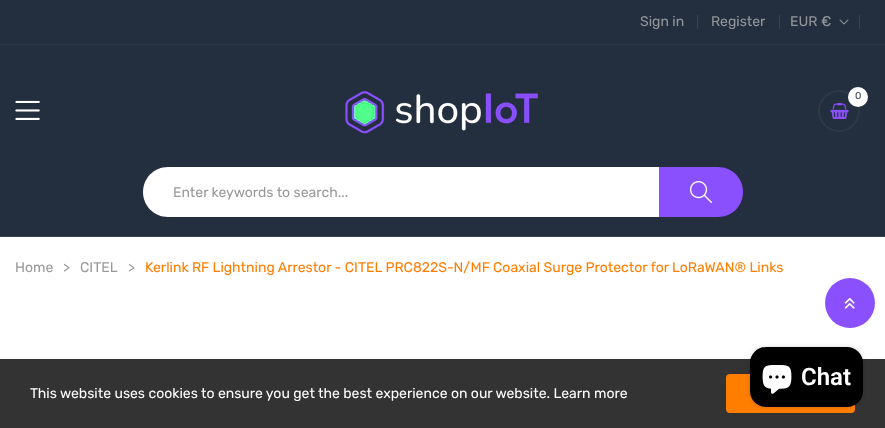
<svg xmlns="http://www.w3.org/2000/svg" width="885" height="428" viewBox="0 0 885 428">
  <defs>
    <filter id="blur1" x="-50%" y="-200%" width="200%" height="500%"><feGaussianBlur stdDeviation="2.5"/></filter>
  </defs>
  <rect width="100%" height="100%" fill="#ffffff"/>
  <rect x="0" y="0" width="885" height="44" fill="#232f3e"/>
  <rect x="0" y="44" width="885" height="1" fill="#2e3948"/>
  <rect x="697" y="15" width="1" height="14" fill="#394451"/>
  <text x="640" y="26" font-family="Rubik" font-size="14" fill="#93979c">Sign in</text>
  <rect x="779" y="15" width="1" height="14" fill="#394451"/>
  <text x="711" y="26" font-family="Rubik" font-size="14" fill="#93979c">Register</text>
  <rect x="859" y="15" width="1" height="14" fill="#394451"/>
  <text x="790" y="26" font-family="Rubik" font-size="14" fill="#93979c">EUR €</text>
  <image x="839" y="19" width="10" height="6" href="img1.png"/>
  <rect x="0" y="45" width="885" height="191" fill="#232f3e"/>
  <image x="345" y="91" width="193" height="43" href="img2.png"/>
  <circle cx="839" cy="111" r="20" fill="none" stroke="#2e3948" stroke-width="2"/>
  <image x="830" y="103" width="19" height="16" href="img3.png"/>
  <circle cx="858" cy="97" r="10" fill="#ffffff"/>
  <text x="855" y="99" font-family="Rubik" font-size="10" fill="#333e48">0</text>
  <image x="15" y="100" width="25" height="20" href="img4.png"/>
  <path d="M168 167H660V217H168C154 217 143 206 143 192C143 178 154 167 168 167Z" fill="#ffffff"/>
  <text x="173" y="197" font-family="Rubik" font-size="14" fill="#999999">Enter keywords to search...</text>
  <path d="M659 167H718C732 167 743 178 743 192C743 206 732 217 718 217H659Z" fill="#8b50fd"/>
  <image x="690" y="181" width="22" height="22" href="img5.png"/>
  <rect x="0" y="236" width="885" height="1" fill="#394451"/>
  <text x="15" y="272" font-family="Rubik" font-size="14" fill="#999999">Home</text>
  <text x="63" y="272" font-family="Rubik" font-size="14" fill="#999999">&gt;</text>
  <text x="80" y="272" font-family="Rubik" font-size="14" fill="#999999">CITEL</text>
  <text x="128" y="272" font-family="Rubik" font-size="14" fill="#999999">&gt;</text>
  <text x="145" y="272" font-family="Rubik" font-size="14" fill="#ff7e00">Kerlink RF Lightning Arrestor - CITEL PRC822S-N/MF Coaxial Surge Protector for LoRaWAN® Links</text>
  <circle cx="850" cy="303" r="25" fill="#8b50fd"/>
  <image x="844" y="297" width="11" height="12" href="img6.png"/>
  <rect x="0" y="359" width="885" height="69" fill="#333333"/>
  <rect x="726" y="374" width="129" height="39" rx="4" fill="#ff7e00"/>
  <rect x="750" y="347" width="113" height="60" rx="16" fill="#000000" fill-opacity="0.15" filter="url(#blur1)"/>
  <rect x="750" y="347" width="113" height="60" rx="16" fill="#000000"/>
  <image x="762" y="365" width="30" height="29" href="img7.png"/>
  <text x="801" y="385" font-family="Roboto" font-size="24" font-weight="600" fill="#ffffff">Chat</text>
  <text x="30" y="398" font-family="Rubik" font-size="14" fill="#ffffff">This website uses cookies to ensure you get the best experience on our website. Learn more</text>
</svg>
